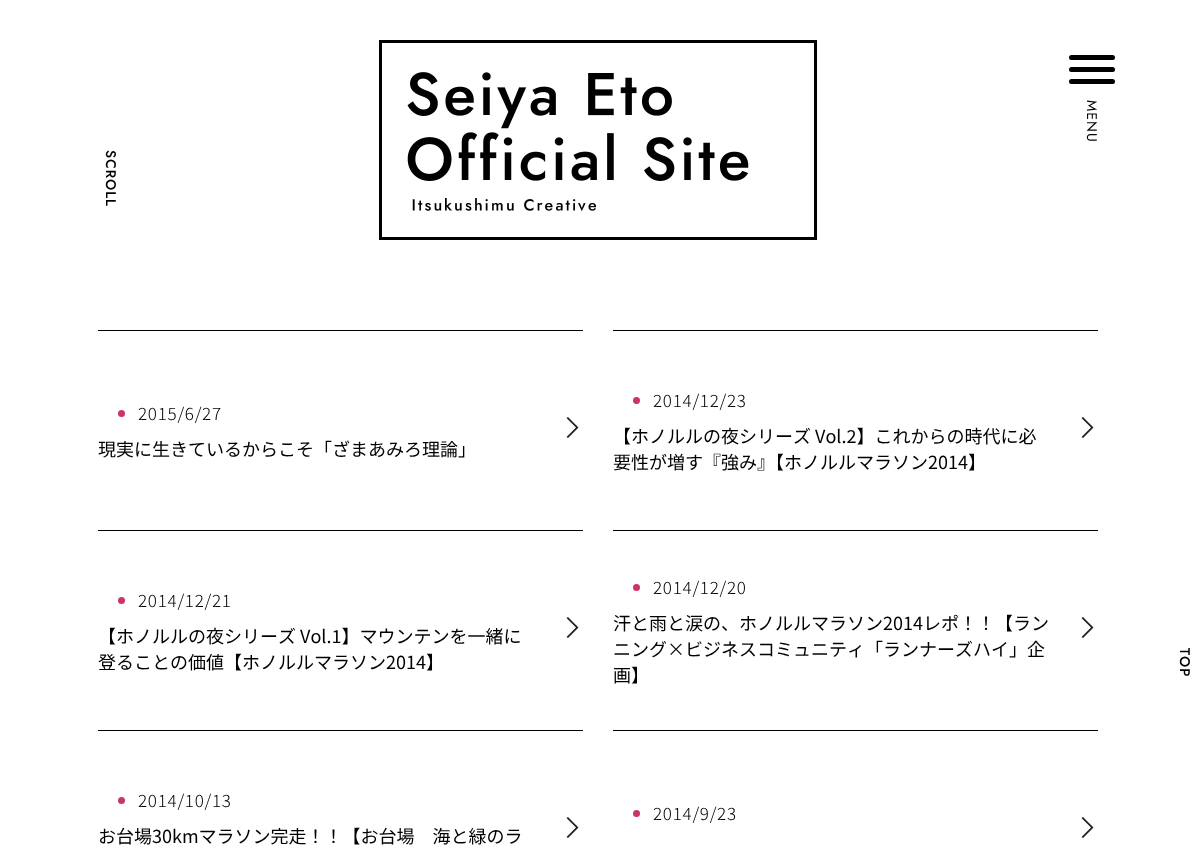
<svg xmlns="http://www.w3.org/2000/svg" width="1195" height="848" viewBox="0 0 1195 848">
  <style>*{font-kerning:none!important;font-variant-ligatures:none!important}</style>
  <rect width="100%" height="100%" fill="#ffffff"/>
  <image x="379" y="40" width="438" height="200" href="img1.png"/>
  <rect x="1069" y="67" width="46" height="5" rx="2.5" fill="#000000"/>
  <rect x="1069" y="55" width="46" height="5" rx="2.5" fill="#000000"/>
  <rect x="1069" y="79" width="46" height="5" rx="2.5" fill="#000000"/>
  <text x="1087" y="100" transform="rotate(90 1087 100)" font-family="Jost" font-size="14" letter-spacing="1" fill="#000000">MENU</text>
  <text x="106" y="150" transform="rotate(90 106 150)" font-family="Jost" font-size="14" font-weight="500" letter-spacing="1" fill="#000000">SCROLL</text>
  <rect x="98" y="330" width="485" height="1" fill="#000000"/>
  <circle cx="121.5" cy="413.5" r="3.5" fill="#cc3366"/>
  <text x="138" y="420" font-family="Noto Sans JP" font-size="17" font-weight="300" letter-spacing="0.75" fill="#000000">2015/6/27</text>
  <text x="98" y="456" font-family="Noto Sans JP" font-size="18" fill="#000000">現実に生きているからこそ「ざまあみろ理論」</text>
  <path d="M566.5 437L568 438L578.5 427.5L568 417L566.5 418L576 427.5Z" fill="#231f20"/>
  <rect x="613" y="330" width="485" height="1" fill="#000000"/>
  <circle cx="636.5" cy="400.5" r="3.5" fill="#cc3366"/>
  <text x="653" y="407" font-family="Noto Sans JP" font-size="17" font-weight="300" letter-spacing="0.75" fill="#000000">2014/12/23</text>
  <text x="613" y="443" font-family="Noto Sans JP" font-size="18" fill="#000000">【ホノルルの夜シリーズ Vol.2】これからの時代に必</text>
  <text x="613" y="469" font-family="Noto Sans JP" font-size="18" fill="#000000">要性が増す『強み』【ホノルルマラソン2014】</text>
  <path d="M1081.5 437L1083 438L1093.5 427.5L1083 417L1081.5 418L1091 427.5Z" fill="#231f20"/>
  <rect x="98" y="530" width="485" height="1" fill="#000000"/>
  <circle cx="121.5" cy="600.5" r="3.5" fill="#cc3366"/>
  <text x="138" y="607" font-family="Noto Sans JP" font-size="17" font-weight="300" letter-spacing="0.75" fill="#000000">2014/12/21</text>
  <text x="98" y="643" font-family="Noto Sans JP" font-size="18" fill="#000000">【ホノルルの夜シリーズ Vol.1】マウンテンを一緒に</text>
  <text x="98" y="669" font-family="Noto Sans JP" font-size="18" fill="#000000">登ることの価値【ホノルルマラソン2014】</text>
  <path d="M566.5 637L568 638L578.5 627.5L568 617L566.5 618L576 627.5Z" fill="#231f20"/>
  <rect x="613" y="530" width="485" height="1" fill="#000000"/>
  <circle cx="636.5" cy="587.5" r="3.5" fill="#cc3366"/>
  <text x="653" y="594" font-family="Noto Sans JP" font-size="17" font-weight="300" letter-spacing="0.75" fill="#000000">2014/12/20</text>
  <text x="613" y="630" font-family="Noto Sans JP" font-size="18" fill="#000000">汗と雨と涙の、ホノルルマラソン2014レポ！！【ラン</text>
  <text x="613" y="656" font-family="Noto Sans JP" font-size="18" fill="#000000">ニング×ビジネスコミュニティ「ランナーズハイ」企</text>
  <text x="613" y="682" font-family="Noto Sans JP" font-size="18" fill="#000000">画】</text>
  <path d="M1081.5 637L1083 638L1093.5 627.5L1083 617L1081.5 618L1091 627.5Z" fill="#231f20"/>
  <rect x="98" y="730" width="485" height="1" fill="#000000"/>
  <circle cx="121.5" cy="800.5" r="3.5" fill="#cc3366"/>
  <text x="138" y="807" font-family="Noto Sans JP" font-size="17" font-weight="300" letter-spacing="0.75" fill="#000000">2014/10/13</text>
  <text x="98" y="843" font-family="Noto Sans JP" font-size="18" fill="#000000">お台場30kmマラソン完走！！【お台場　海と緑のラ</text>
  <path d="M566.5 837L568 838L578.5 827.5L568 817L566.5 818L576 827.5Z" fill="#231f20"/>
  <rect x="613" y="730" width="485" height="1" fill="#000000"/>
  <circle cx="636.5" cy="813.5" r="3.5" fill="#cc3366"/>
  <text x="653" y="820" font-family="Noto Sans JP" font-size="17" font-weight="300" letter-spacing="0.75" fill="#000000">2014/9/23</text>
  <path d="M1081.5 837L1083 838L1093.5 827.5L1083 817L1081.5 818L1091 827.5Z" fill="#231f20"/>
  <text x="1180" y="648" transform="rotate(90 1180 648)" font-family="Jost" font-size="14" font-weight="500" letter-spacing="1" fill="#000000">TOP</text>
</svg>
